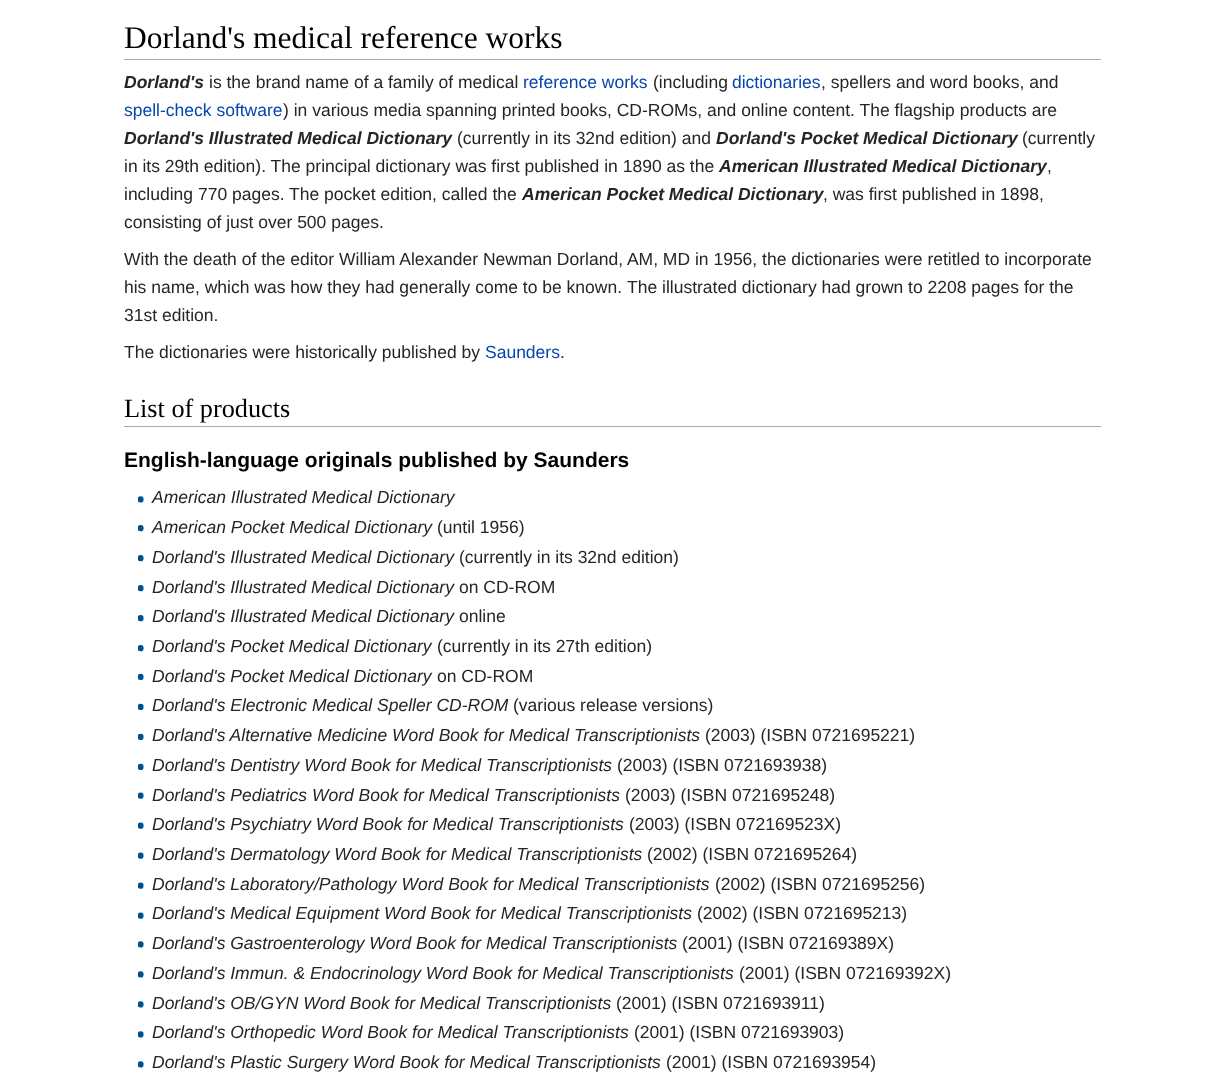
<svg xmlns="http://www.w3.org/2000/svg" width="1225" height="1080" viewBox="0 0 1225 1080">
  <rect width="100%" height="100%" fill="#ffffff"/>
  <rect x="124" y="59" width="977" height="1" fill="#aaaaaa"/>
  <text x="124" y="48" font-family="Liberation Serif" font-size="31.5" fill="#000000">Dorland's medical reference works</text>
  <text x="124" y="88" font-family="Liberation Sans" font-size="17.5" font-weight="bold" font-style="italic" fill="#252525">Dorland's</text>
  <text x="209" y="88" font-family="Liberation Sans" font-size="17.5" fill="#252525">is the brand name of a family of medical</text>
  <text x="523" y="88" font-family="Liberation Sans" font-size="17.5" fill="#0645ad">reference works</text>
  <text x="653" y="88" font-family="Liberation Sans" font-size="17.5" fill="#252525">(including</text>
  <text x="732" y="88" font-family="Liberation Sans" font-size="17.5" fill="#0645ad">dictionaries</text>
  <text x="821" y="88" font-family="Liberation Sans" font-size="17.5" fill="#252525">, spellers and word books, and</text>
  <text x="124" y="116" font-family="Liberation Sans" font-size="17.5" fill="#0645ad">spell-check software</text>
  <text x="283" y="116" font-family="Liberation Sans" font-size="17.5" fill="#252525">) in various media spanning printed books, CD-ROMs, and online content. The flagship products are</text>
  <text x="124" y="144" font-family="Liberation Sans" font-size="17.5" font-weight="bold" font-style="italic" fill="#252525">Dorland's Illustrated Medical Dictionary</text>
  <text x="457" y="144" font-family="Liberation Sans" font-size="17.5" fill="#252525">(currently in its 32nd edition) and</text>
  <text x="716" y="144" font-family="Liberation Sans" font-size="17.5" font-weight="bold" font-style="italic" fill="#252525">Dorland's Pocket Medical Dictionary</text>
  <text x="1022" y="144" font-family="Liberation Sans" font-size="17.5" fill="#252525">(currently</text>
  <text x="124" y="172" font-family="Liberation Sans" font-size="17.5" fill="#252525">in its 29th edition). The principal dictionary was first published in 1890 as the</text>
  <text x="719" y="172" font-family="Liberation Sans" font-size="17.5" font-weight="bold" font-style="italic" fill="#252525">American Illustrated Medical Dictionary</text>
  <text x="1047" y="172" font-family="Liberation Sans" font-size="17.5" fill="#252525">,</text>
  <text x="124" y="200" font-family="Liberation Sans" font-size="17.5" fill="#252525">including 770 pages. The pocket edition, called the</text>
  <text x="522" y="200" font-family="Liberation Sans" font-size="17.5" font-weight="bold" font-style="italic" fill="#252525">American Pocket Medical Dictionary</text>
  <text x="823" y="200" font-family="Liberation Sans" font-size="17.5" fill="#252525">, was first published in 1898,</text>
  <text x="124" y="228" font-family="Liberation Sans" font-size="17.5" fill="#252525">consisting of just over 500 pages.</text>
  <text x="124" y="265" font-family="Liberation Sans" font-size="17.5" fill="#252525">With the death of the editor William Alexander Newman Dorland, AM, MD in 1956, the dictionaries were retitled to incorporate</text>
  <text x="124" y="293" font-family="Liberation Sans" font-size="17.5" fill="#252525">his name, which was how they had generally come to be known.</text>
  <text x="627" y="293" font-family="Liberation Sans" font-size="17.5" fill="#252525">The illustrated dictionary had grown to 2208 pages for the</text>
  <text x="124" y="321" font-family="Liberation Sans" font-size="17.5" fill="#252525">31st edition.</text>
  <text x="124" y="358" font-family="Liberation Sans" font-size="17.5" fill="#252525">The dictionaries were historically published by</text>
  <text x="485" y="358" font-family="Liberation Sans" font-size="17.5" fill="#0645ad">Saunders</text>
  <text x="560" y="358" font-family="Liberation Sans" font-size="17.5" fill="#252525">.</text>
  <rect x="124" y="426" width="977" height="1" fill="#aaaaaa"/>
  <text x="124" y="417" font-family="Liberation Serif" font-size="26.25" fill="#000000">List of products</text>
  <text x="124" y="467" font-family="Liberation Sans" font-size="21" font-weight="bold" fill="#000000">English-language originals published by Saunders</text>
  <image x="138" y="496" width="6" height="7" href="img1.png"/>
  <text x="152" y="503" font-family="Liberation Sans" font-size="17.5" font-style="italic" fill="#252525">American Illustrated Medical Dictionary</text>
  <image x="138" y="525" width="6" height="7" href="img2.png"/>
  <text x="152" y="533" font-family="Liberation Sans" font-size="17.5" font-style="italic" fill="#252525">American Pocket Medical Dictionary</text>
  <text x="437" y="533" font-family="Liberation Sans" font-size="17.5" fill="#252525">(until 1956)</text>
  <image x="138" y="555" width="6" height="7" href="img2.png"/>
  <text x="152" y="563" font-family="Liberation Sans" font-size="17.5" font-style="italic" fill="#252525">Dorland's Illustrated Medical Dictionary</text>
  <text x="459" y="563" font-family="Liberation Sans" font-size="17.5" fill="#252525">(currently in its 32nd edition)</text>
  <image x="138" y="585" width="6" height="7" href="img2.png"/>
  <text x="152" y="593" font-family="Liberation Sans" font-size="17.5" font-style="italic" fill="#252525">Dorland's Illustrated Medical Dictionary</text>
  <text x="459" y="593" font-family="Liberation Sans" font-size="17.5" fill="#252525">on CD-ROM</text>
  <image x="138" y="615" width="6" height="7" href="img2.png"/>
  <text x="152" y="622" font-family="Liberation Sans" font-size="17.5" font-style="italic" fill="#252525">Dorland's Illustrated Medical Dictionary</text>
  <text x="459" y="622" font-family="Liberation Sans" font-size="17.5" fill="#252525">online</text>
  <image x="138" y="645" width="6" height="7" href="img2.png"/>
  <text x="152" y="652" font-family="Liberation Sans" font-size="17.5" font-style="italic" fill="#252525">Dorland's Pocket Medical Dictionary</text>
  <text x="437" y="652" font-family="Liberation Sans" font-size="17.5" fill="#252525">(currently in its 27th edition)</text>
  <image x="138" y="673" width="6" height="7" href="img3.png"/>
  <text x="152" y="682" font-family="Liberation Sans" font-size="17.5" font-style="italic" fill="#252525">Dorland's Pocket Medical Dictionary</text>
  <text x="437" y="682" font-family="Liberation Sans" font-size="17.5" fill="#252525">on CD-ROM</text>
  <image x="138" y="703" width="6" height="7" href="img3.png"/>
  <text x="152" y="711" font-family="Liberation Sans" font-size="17.5" font-style="italic" fill="#252525">Dorland's Electronic Medical Speller CD-ROM</text>
  <text x="513" y="711" font-family="Liberation Sans" font-size="17.5" fill="#252525">(various release versions)</text>
  <image x="138" y="733" width="6" height="7" href="img3.png"/>
  <text x="152" y="741" font-family="Liberation Sans" font-size="17.5" font-style="italic" fill="#252525">Dorland's Alternative Medicine Word Book for Medical Transcriptionists</text>
  <text x="705" y="741" font-family="Liberation Sans" font-size="17.5" fill="#252525">(2003) (ISBN 0721695221)</text>
  <image x="138" y="763" width="6" height="7" href="img3.png"/>
  <text x="152" y="771" font-family="Liberation Sans" font-size="17.5" font-style="italic" fill="#252525">Dorland's Dentistry Word Book for Medical Transcriptionists</text>
  <text x="617" y="771" font-family="Liberation Sans" font-size="17.5" fill="#252525">(2003) (ISBN 0721693938)</text>
  <image x="138" y="792" width="6" height="7" href="img4.png"/>
  <text x="152" y="801" font-family="Liberation Sans" font-size="17.5" font-style="italic" fill="#252525">Dorland's Pediatrics Word Book for Medical Transcriptionists</text>
  <text x="625" y="801" font-family="Liberation Sans" font-size="17.5" fill="#252525">(2003) (ISBN 0721695248)</text>
  <image x="138" y="822" width="6" height="7" href="img4.png"/>
  <text x="152" y="830" font-family="Liberation Sans" font-size="17.5" font-style="italic" fill="#252525">Dorland's Psychiatry Word Book for Medical Transcriptionists</text>
  <text x="629" y="830" font-family="Liberation Sans" font-size="17.5" fill="#252525">(2003) (ISBN 072169523X)</text>
  <image x="138" y="852" width="6" height="7" href="img4.png"/>
  <text x="152" y="860" font-family="Liberation Sans" font-size="17.5" font-style="italic" fill="#252525">Dorland's Dermatology Word Book for Medical Transcriptionists</text>
  <text x="647" y="860" font-family="Liberation Sans" font-size="17.5" fill="#252525">(2002) (ISBN 0721695264)</text>
  <image x="138" y="882" width="6" height="7" href="img4.png"/>
  <text x="152" y="890" font-family="Liberation Sans" font-size="17.5" font-style="italic" fill="#252525">Dorland's Laboratory/Pathology Word Book for Medical Transcriptionists</text>
  <text x="715" y="890" font-family="Liberation Sans" font-size="17.5" fill="#252525">(2002) (ISBN 0721695256)</text>
  <image x="138" y="912" width="6" height="7" href="img4.png"/>
  <text x="152" y="919" font-family="Liberation Sans" font-size="17.5" font-style="italic" fill="#252525">Dorland's Medical Equipment Word Book for Medical Transcriptionists</text>
  <text x="697" y="919" font-family="Liberation Sans" font-size="17.5" fill="#252525">(2002) (ISBN 0721695213)</text>
  <image x="138" y="941" width="6" height="7" href="img1.png"/>
  <text x="152" y="949" font-family="Liberation Sans" font-size="17.5" font-style="italic" fill="#252525">Dorland's Gastroenterology Word Book for Medical Transcriptionists</text>
  <text x="682" y="949" font-family="Liberation Sans" font-size="17.5" fill="#252525">(2001) (ISBN 072169389X)</text>
  <image x="138" y="971" width="6" height="7" href="img1.png"/>
  <text x="152" y="979" font-family="Liberation Sans" font-size="17.5" font-style="italic" fill="#252525">Dorland's Immun. &amp; Endocrinology Word Book for Medical Transcriptionists</text>
  <text x="739" y="979" font-family="Liberation Sans" font-size="17.5" fill="#252525">(2001) (ISBN 072169392X)</text>
  <image x="138" y="1001" width="6" height="7" href="img1.png"/>
  <text x="152" y="1009" font-family="Liberation Sans" font-size="17.5" font-style="italic" fill="#252525">Dorland's OB/GYN Word Book for Medical Transcriptionists</text>
  <text x="616" y="1009" font-family="Liberation Sans" font-size="17.5" fill="#252525">(2001) (ISBN 0721693911)</text>
  <image x="138" y="1031" width="6" height="7" href="img1.png"/>
  <text x="152" y="1038" font-family="Liberation Sans" font-size="17.5" font-style="italic" fill="#252525">Dorland's Orthopedic Word Book for Medical Transcriptionists</text>
  <text x="634" y="1038" font-family="Liberation Sans" font-size="17.5" fill="#252525">(2001) (ISBN 0721693903)</text>
  <image x="138" y="1061" width="6" height="7" href="img1.png"/>
  <text x="152" y="1068" font-family="Liberation Sans" font-size="17.5" font-style="italic" fill="#252525">Dorland's Plastic Surgery Word Book for Medical Transcriptionists</text>
  <text x="666" y="1068" font-family="Liberation Sans" font-size="17.5" fill="#252525">(2001) (ISBN 0721693954)</text>
</svg>
